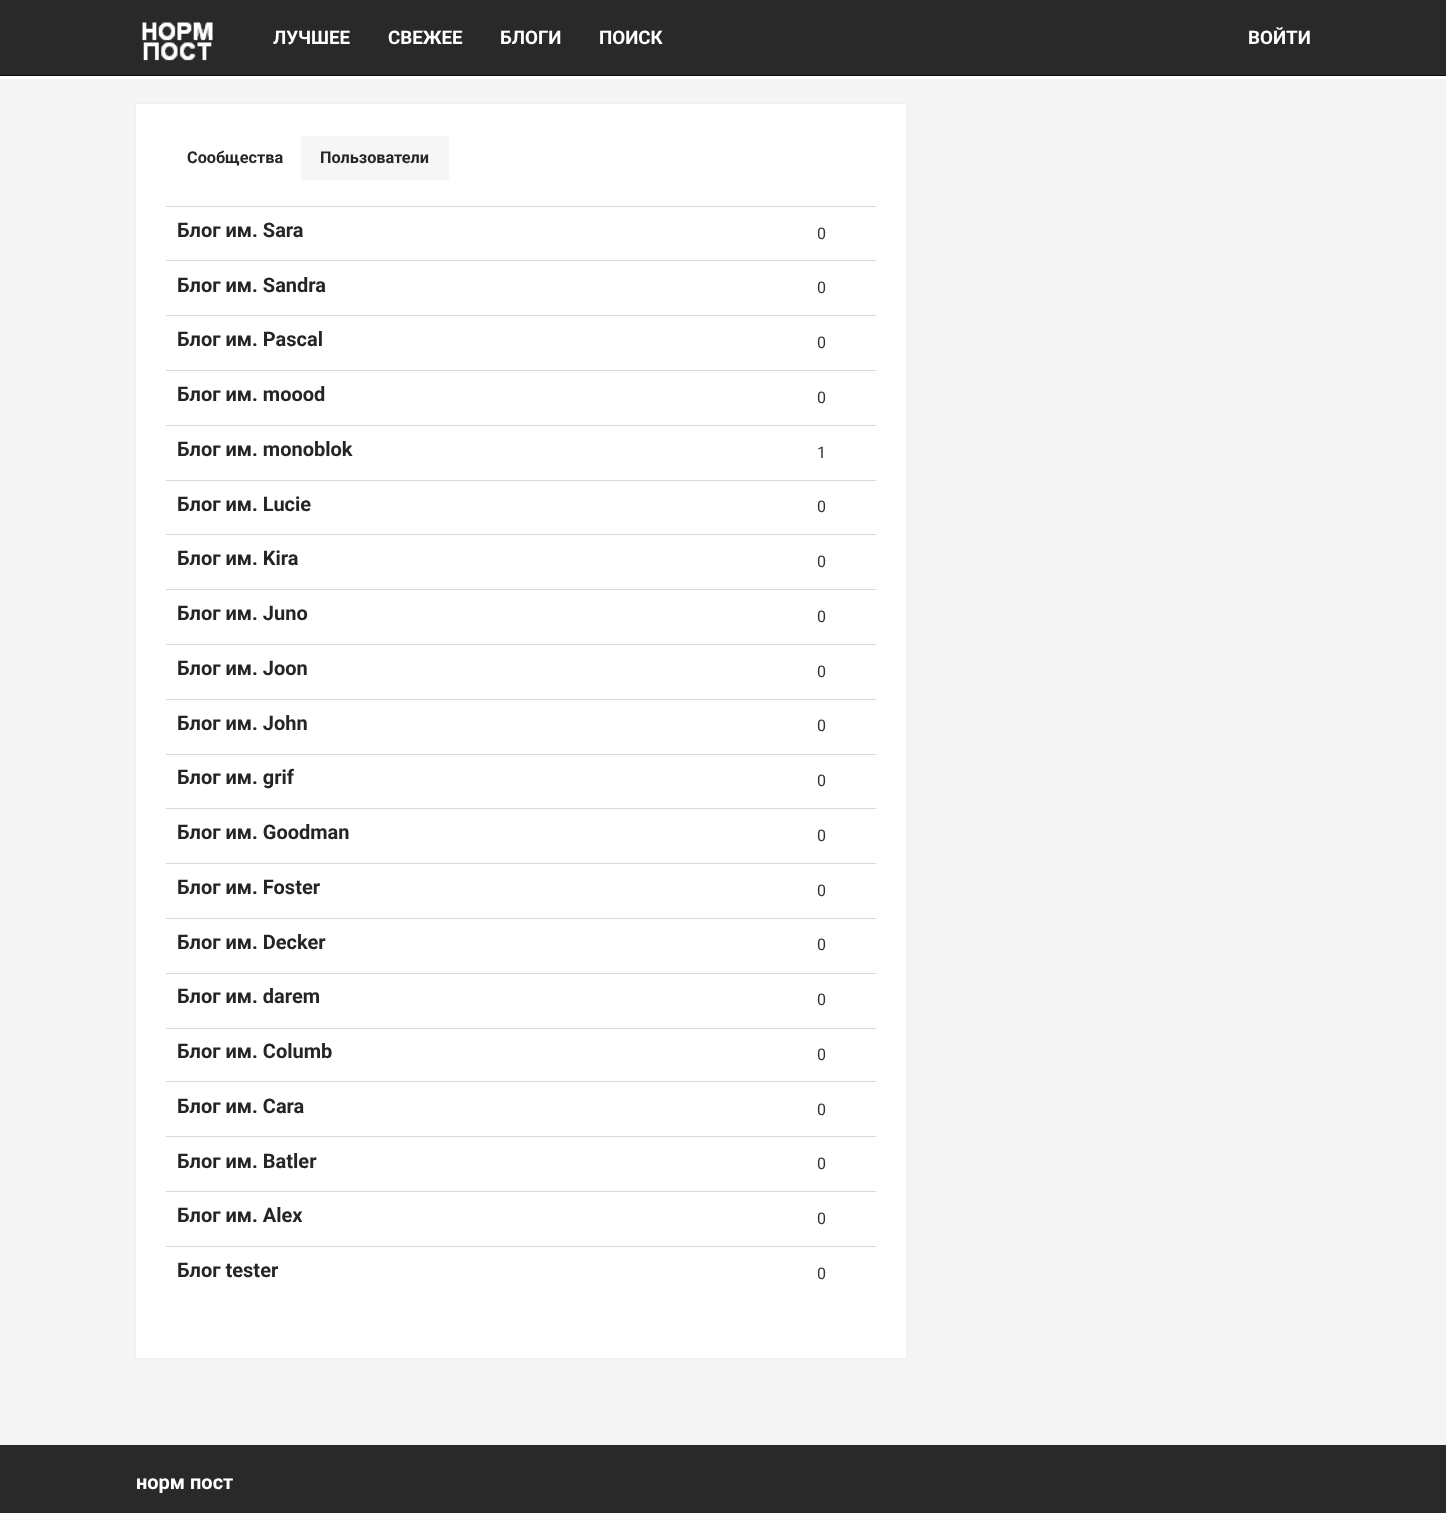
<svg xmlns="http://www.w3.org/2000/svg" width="1446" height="1513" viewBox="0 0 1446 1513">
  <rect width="100%" height="100%" fill="#f4f4f4"/>
  <rect x="0" y="0" width="1446" height="75" fill="#292929"/>
  <rect x="0" y="75" width="1446" height="1" fill="#0c0c0c"/>
  <image x="142" y="22" width="71" height="39" href="img1.png"/>
  <text x="273" y="44" font-family="Roboto" font-size="18.75" font-weight="bold" fill="#ffffff">ЛУЧШЕЕ</text>
  <text x="388" y="44" font-family="Roboto" font-size="18.75" font-weight="bold" fill="#ffffff">СВЕЖЕЕ</text>
  <text x="500" y="44" font-family="Roboto" font-size="18.75" font-weight="bold" fill="#ffffff">БЛОГИ</text>
  <text x="599" y="44" font-family="Roboto" font-size="18.75" font-weight="bold" fill="#ffffff">ПОИСК</text>
  <text x="1248" y="44" font-family="Roboto" font-size="18.75" font-weight="bold" fill="#ffffff">ВОЙТИ</text>
  <rect x="0" y="76" width="1446" height="3" fill="#ffffff"/>
  <rect x="135.5" y="103.5" width="772" height="1255" fill="none" stroke="#efefef"/>
  <rect x="136" y="104" width="770" height="1254" fill="#ffffff"/>
  <text x="187" y="163" font-family="Roboto" font-size="16.25" font-weight="bold" fill="#252525">Сообщества</text>
  <rect x="301" y="136" width="148" height="44" fill="#f6f6f6"/>
  <text x="320" y="163" font-family="Roboto" font-size="16.25" font-weight="bold" fill="#252525">Пользователи</text>
  <text x="177" y="237" font-family="Roboto" font-size="20" font-weight="bold" fill="#252525">Блог им. Sara</text>
  <rect x="166" y="206" width="710" height="1" fill="#d9d9d9"/>
  <text x="817" y="239" font-family="Roboto" font-size="16" fill="#333333">0</text>
  <text x="177" y="292" font-family="Roboto" font-size="20" font-weight="bold" fill="#252525">Блог им. Sandra</text>
  <rect x="166" y="260" width="710" height="1" fill="#d9d9d9"/>
  <text x="817" y="293" font-family="Roboto" font-size="16" fill="#333333">0</text>
  <text x="177" y="346" font-family="Roboto" font-size="20" font-weight="bold" fill="#252525">Блог им. Pascal</text>
  <rect x="166" y="315" width="710" height="1" fill="#d9d9d9"/>
  <text x="817" y="348" font-family="Roboto" font-size="16" fill="#333333">0</text>
  <text x="177" y="401" font-family="Roboto" font-size="20" font-weight="bold" fill="#252525">Блог им. moood</text>
  <rect x="166" y="370" width="710" height="1" fill="#d9d9d9"/>
  <text x="817" y="403" font-family="Roboto" font-size="16" fill="#333333">0</text>
  <text x="177" y="456" font-family="Roboto" font-size="20" font-weight="bold" fill="#252525">Блог им. monoblok</text>
  <rect x="166" y="425" width="710" height="1" fill="#d9d9d9"/>
  <text x="817" y="458" font-family="Roboto" font-size="16" fill="#333333">1</text>
  <text x="177" y="511" font-family="Roboto" font-size="20" font-weight="bold" fill="#252525">Блог им. Lucie</text>
  <rect x="166" y="480" width="710" height="1" fill="#d9d9d9"/>
  <text x="817" y="512" font-family="Roboto" font-size="16" fill="#333333">0</text>
  <text x="177" y="565" font-family="Roboto" font-size="20" font-weight="bold" fill="#252525">Блог им. Kira</text>
  <rect x="166" y="534" width="710" height="1" fill="#d9d9d9"/>
  <text x="817" y="567" font-family="Roboto" font-size="16" fill="#333333">0</text>
  <text x="177" y="620" font-family="Roboto" font-size="20" font-weight="bold" fill="#252525">Блог им. Juno</text>
  <rect x="166" y="589" width="710" height="1" fill="#d9d9d9"/>
  <text x="817" y="622" font-family="Roboto" font-size="16" fill="#333333">0</text>
  <text x="177" y="675" font-family="Roboto" font-size="20" font-weight="bold" fill="#252525">Блог им. Joon</text>
  <rect x="166" y="644" width="710" height="1" fill="#d9d9d9"/>
  <text x="817" y="677" font-family="Roboto" font-size="16" fill="#333333">0</text>
  <text x="177" y="730" font-family="Roboto" font-size="20" font-weight="bold" fill="#252525">Блог им. John</text>
  <rect x="166" y="699" width="710" height="1" fill="#d9d9d9"/>
  <text x="817" y="731" font-family="Roboto" font-size="16" fill="#333333">0</text>
  <text x="177" y="784" font-family="Roboto" font-size="20" font-weight="bold" fill="#252525">Блог им. grif</text>
  <rect x="166" y="754" width="710" height="1" fill="#d9d9d9"/>
  <text x="817" y="786" font-family="Roboto" font-size="16" fill="#333333">0</text>
  <text x="177" y="839" font-family="Roboto" font-size="20" font-weight="bold" fill="#252525">Блог им. Goodman</text>
  <rect x="166" y="808" width="710" height="1" fill="#d9d9d9"/>
  <text x="817" y="841" font-family="Roboto" font-size="16" fill="#333333">0</text>
  <text x="177" y="894" font-family="Roboto" font-size="20" font-weight="bold" fill="#252525">Блог им. Foster</text>
  <rect x="166" y="863" width="710" height="1" fill="#d9d9d9"/>
  <text x="817" y="896" font-family="Roboto" font-size="16" fill="#333333">0</text>
  <text x="177" y="949" font-family="Roboto" font-size="20" font-weight="bold" fill="#252525">Блог им. Decker</text>
  <rect x="166" y="918" width="710" height="1" fill="#d9d9d9"/>
  <text x="817" y="950" font-family="Roboto" font-size="16" fill="#333333">0</text>
  <text x="177" y="1003" font-family="Roboto" font-size="20" font-weight="bold" fill="#252525">Блог им. darem</text>
  <rect x="166" y="973" width="710" height="1" fill="#d9d9d9"/>
  <text x="817" y="1005" font-family="Roboto" font-size="16" fill="#333333">0</text>
  <text x="177" y="1058" font-family="Roboto" font-size="20" font-weight="bold" fill="#252525">Блог им. Columb</text>
  <rect x="166" y="1028" width="710" height="1" fill="#d9d9d9"/>
  <text x="817" y="1060" font-family="Roboto" font-size="16" fill="#333333">0</text>
  <text x="177" y="1113" font-family="Roboto" font-size="20" font-weight="bold" fill="#252525">Блог им. Cara</text>
  <rect x="166" y="1081" width="710" height="1" fill="#d9d9d9"/>
  <text x="817" y="1115" font-family="Roboto" font-size="16" fill="#333333">0</text>
  <text x="177" y="1168" font-family="Roboto" font-size="20" font-weight="bold" fill="#252525">Блог им. Batler</text>
  <rect x="166" y="1136" width="710" height="1" fill="#d9d9d9"/>
  <text x="817" y="1169" font-family="Roboto" font-size="16" fill="#333333">0</text>
  <text x="177" y="1222" font-family="Roboto" font-size="20" font-weight="bold" fill="#252525">Блог им. Alex</text>
  <rect x="166" y="1191" width="710" height="1" fill="#d9d9d9"/>
  <text x="817" y="1224" font-family="Roboto" font-size="16" fill="#333333">0</text>
  <text x="177" y="1277" font-family="Roboto" font-size="20" font-weight="bold" fill="#252525">Блог tester</text>
  <rect x="166" y="1246" width="710" height="1" fill="#d9d9d9"/>
  <text x="817" y="1279" font-family="Roboto" font-size="16" fill="#333333">0</text>
  <rect x="0" y="1445" width="1446" height="68" fill="#292929"/>
  <text x="136" y="1489" font-family="Roboto" font-size="20" font-weight="bold" fill="#ffffff">норм пост</text>
</svg>
